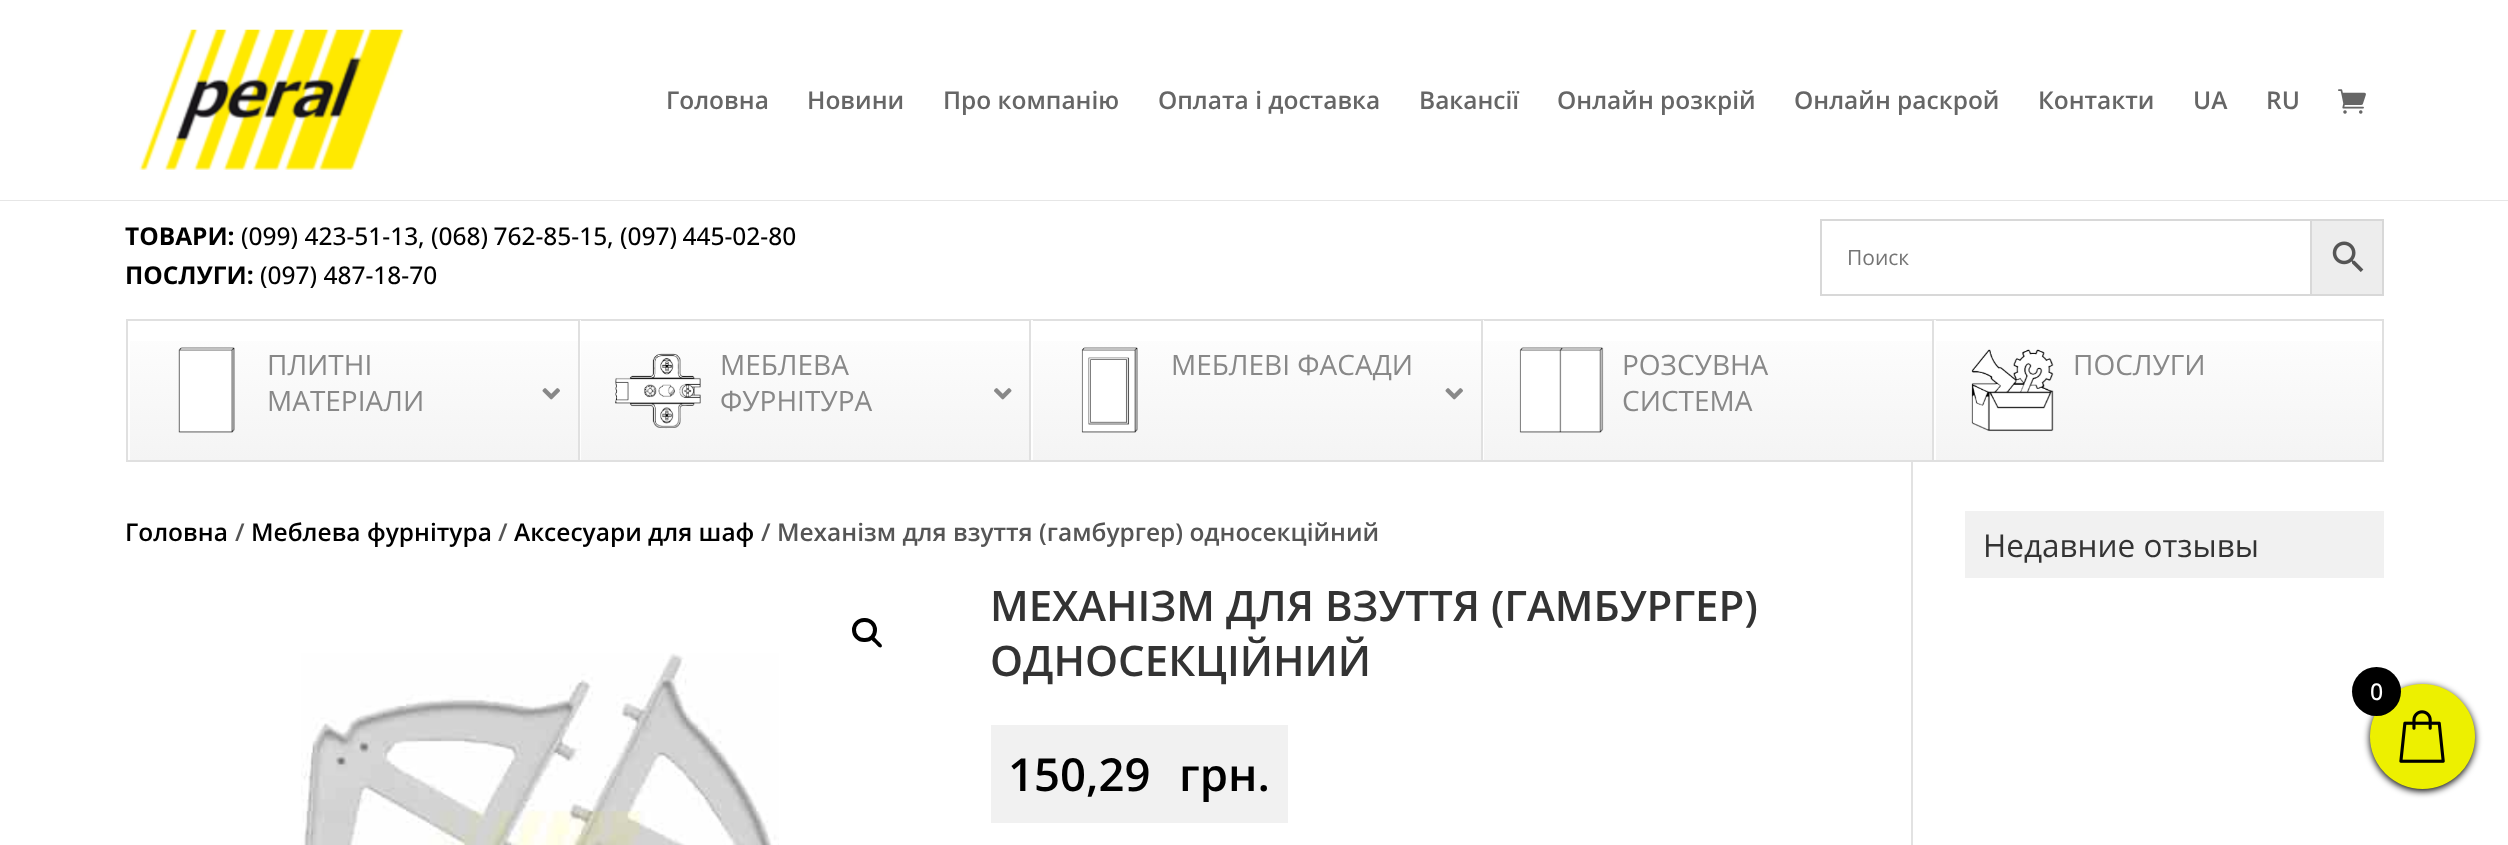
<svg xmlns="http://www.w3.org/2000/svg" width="2508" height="845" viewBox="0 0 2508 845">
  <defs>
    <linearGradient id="g1" gradientUnits="userSpaceOnUse" x1="1255" y1="320" x2="1255" y2="460"><stop offset="0" stop-color="#fefefe"/><stop offset="1" stop-color="#f4f4f4"/></linearGradient>
    <clipPath id="clip1"><rect x="128" y="320" width="2254" height="140"/></clipPath>
    <filter id="blur1" x="-50%" y="-200%" width="200%" height="500%"><feGaussianBlur stdDeviation="3.5"/></filter>
  </defs>
  <rect width="100%" height="100%" fill="#ffffff"/>
  <path d="M0 200V201H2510V2V200Z" fill="#e6e6e6"/>
  <image x="139" y="29" width="266" height="141" href="img1.png"/>
  <text x="666" y="109" font-family="Open Sans" font-size="24.5" font-weight="600" fill="#666666">Головна</text>
  <text x="807" y="109" font-family="Open Sans" font-size="24.5" font-weight="600" fill="#666666">Новини</text>
  <text x="943" y="109" font-family="Open Sans" font-size="24.5" font-weight="600" fill="#666666">Про компанію</text>
  <text x="1158" y="109" font-family="Open Sans" font-size="24.5" font-weight="600" fill="#666666">Оплата і доставка</text>
  <text x="1419" y="109" font-family="Open Sans" font-size="24.5" font-weight="600" fill="#666666">Вакансії</text>
  <text x="1557" y="109" font-family="Open Sans" font-size="24.5" font-weight="600" fill="#666666">Онлайн розкрій</text>
  <text x="1794" y="109" font-family="Open Sans" font-size="24.5" font-weight="600" fill="#666666">Онлайн раскрой</text>
  <text x="2038" y="109" font-family="Open Sans" font-size="24.5" font-weight="600" fill="#666666">Контакти</text>
  <text x="2193" y="109" font-family="Open Sans" font-size="24.5" font-weight="600" fill="#666666">UA</text>
  <text x="2266" y="109" font-family="Open Sans" font-size="24.5" font-weight="600" fill="#666666">RU</text>
  <image x="2338" y="89" width="28" height="25" href="img2.png"/>
  <text x="125" y="245" font-family="Open Sans" font-size="24.5" font-weight="bold" fill="#000000">ТОВАРИ:</text>
  <text x="241" y="245" font-family="Open Sans" font-size="24.5" font-weight="500" fill="#000000">(099) 423-51-13</text>
  <text x="418" y="245" font-family="Open Sans" font-size="24.5" font-weight="500" fill="#000000">,</text>
  <text x="431" y="245" word-spacing="-1" font-family="Open Sans" font-size="24.5" font-weight="500" fill="#000000">(068) 762-85-15</text>
  <text x="607" y="245" font-family="Open Sans" font-size="24.5" font-weight="500" fill="#000000">,</text>
  <text x="620" y="245" word-spacing="-1" font-family="Open Sans" font-size="24.5" font-weight="500" fill="#000000">(097) 445-02-80</text>
  <text x="125" y="284" font-family="Open Sans" font-size="24.5" font-weight="bold" fill="#000000">ПОСЛУГИ:</text>
  <text x="260" y="284" font-family="Open Sans" font-size="24.5" font-weight="500" fill="#000000">(097) 487-18-70</text>
  <rect x="2311" y="220" width="72" height="75" fill="#ededed" stroke="#d8d8d8" stroke-width="2"/>
  <rect x="1821" y="220" width="490" height="75" fill="none" stroke="#d8d8d8" stroke-width="2"/>
  <text x="1847" y="265" font-family="Open Sans" font-size="21" fill="#757575">Поиск</text>
  <image x="2332" y="241" width="32" height="31" href="img3.png"/>
  <rect x="128" y="341" width="2254" height="119" fill="url(#g1)"/>
  <g clip-path="url(#clip1)">
    <path d="M-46 147H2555V634H-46ZM130 322H2384V462H130Z" fill="#ffffff" fill-opacity="0.9" fill-rule="evenodd"/>
  </g>
  <rect x="127" y="320" width="2256" height="141" fill="none" stroke="#e0e0e0" stroke-width="2"/>
  <image x="178" y="347" width="57" height="86" href="img4.png"/>
  <text x="267" y="375" font-family="Open Sans" font-size="28" fill="#888888">ПЛИТНІ</text>
  <text x="267" y="411" font-family="Open Sans" font-size="28" fill="#888888">МАТЕРІАЛИ</text>
  <image x="542" y="388" width="18" height="12" href="img5.png"/>
  <rect x="580" y="320" width="1" height="140" fill="#ffffff" fill-opacity="0.9"/>
  <rect x="578" y="320" width="2" height="140" fill="#e0e0e0"/>
  <image x="615" y="353" width="86" height="76" href="img6.png"/>
  <text x="720" y="375" font-family="Open Sans" font-size="28" fill="#888888">МЕБЛЕВА</text>
  <text x="720" y="411" font-family="Open Sans" font-size="28" fill="#888888">ФУРНІТУРА</text>
  <image x="994" y="388" width="18" height="12" href="img7.png"/>
  <rect x="1031" y="320" width="2" height="140" fill="#ffffff" fill-opacity="0.9"/>
  <rect x="1029" y="320" width="2" height="140" fill="#e0e0e0"/>
  <image x="1081" y="347" width="57" height="86" href="img8.png"/>
  <text x="1171" y="375" font-family="Open Sans" font-size="28" fill="#888888">МЕБЛЕВІ ФАСАДИ</text>
  <image x="1445" y="388" width="18" height="12" href="img5.png"/>
  <rect x="1483" y="320" width="1" height="140" fill="#ffffff" fill-opacity="0.9"/>
  <rect x="1481" y="320" width="2" height="140" fill="#e0e0e0"/>
  <image x="1519" y="347" width="85" height="86" href="img9.png"/>
  <text x="1622" y="375" font-family="Open Sans" font-size="28" fill="#888888">РОЗСУВНА</text>
  <text x="1622" y="411" font-family="Open Sans" font-size="28" fill="#888888">СИСТЕМА</text>
  <rect x="1934" y="320" width="2" height="140" fill="#ffffff" fill-opacity="0.9"/>
  <rect x="1932" y="320" width="2" height="140" fill="#e0e0e0"/>
  <image x="1971" y="349" width="83" height="83" href="img10.png"/>
  <text x="2073" y="375" font-family="Open Sans" font-size="28" fill="#888888">ПОСЛУГИ</text>
  <rect x="1911" y="462" width="2" height="383" fill="#e2e2e2"/>
  <text x="125" y="541" font-family="Open Sans" font-size="24.5" font-weight="600" fill="#000000">Головна</text>
  <text x="235" y="541" font-family="Open Sans" font-size="24.5" font-weight="600" fill="#555555">/</text>
  <text x="251" y="541" font-family="Open Sans" font-size="24.5" font-weight="600" fill="#000000">Меблева фурнітура</text>
  <text x="498" y="541" font-family="Open Sans" font-size="24.5" font-weight="600" fill="#555555">/</text>
  <text x="514" y="541" font-family="Open Sans" font-size="24.5" font-weight="600" fill="#000000">Аксесуари для шаф</text>
  <text x="761" y="541" font-family="Open Sans" font-size="24.5" font-weight="600" fill="#555555">/ Механізм для взуття (гамбургер) односекційний</text>
  <rect x="854" y="620" width="21" height="20" rx="10" fill="none" stroke="#000000" stroke-width="4"/>
  <path d="M871.5 637C873.5 635 876.5 639.5 877.5 640.5C878.5 641.5 883.5 645 881.5 647C879.5 649 876 644 875 643C874 642 869.5 639 871.5 637Z" fill="#000000"/>
  <image x="301" y="653" width="478" height="192" href="img11.png"/>
  <text x="990" y="621" font-family="Open Sans" font-size="42" font-weight="600" fill="#333333">МЕХАНІЗМ ДЛЯ ВЗУТТЯ (ГАМБУРГЕР)</text>
  <text x="990" y="676" font-family="Open Sans" font-size="42" font-weight="600" fill="#333333">ОДНОСЕКЦІЙНИЙ</text>
  <rect x="991" y="725" width="297" height="98" fill="#f1f1f1"/>
  <text x="1008" y="791" font-family="Open Sans" font-size="45.5" font-weight="600" fill="#000000">150,29</text>
  <text x="1179" y="791" font-family="Open Sans" font-size="45.5" font-weight="600" fill="#000000">грн.</text>
  <rect x="1965" y="511" width="419" height="67" fill="#f1f1f1"/>
  <text x="1983" y="557" font-family="Open Sans" font-size="31.5" fill="#333333">Недавние отзывы</text>
  <rect x="2370" y="686" width="105" height="105" rx="52.5" fill="#000000" filter="url(#blur1)"/>
  <circle cx="2422.5" cy="736.5" r="52.5" fill="#edf000"/>
  <image x="2399" y="710" width="46" height="53" href="img12.png"/>
  <circle cx="2376.5" cy="691.5" r="24.5" fill="#000000"/>
  <text x="2370" y="700" font-family="Open Sans" font-size="23" font-weight="500" fill="#ffffff">0</text>
</svg>
